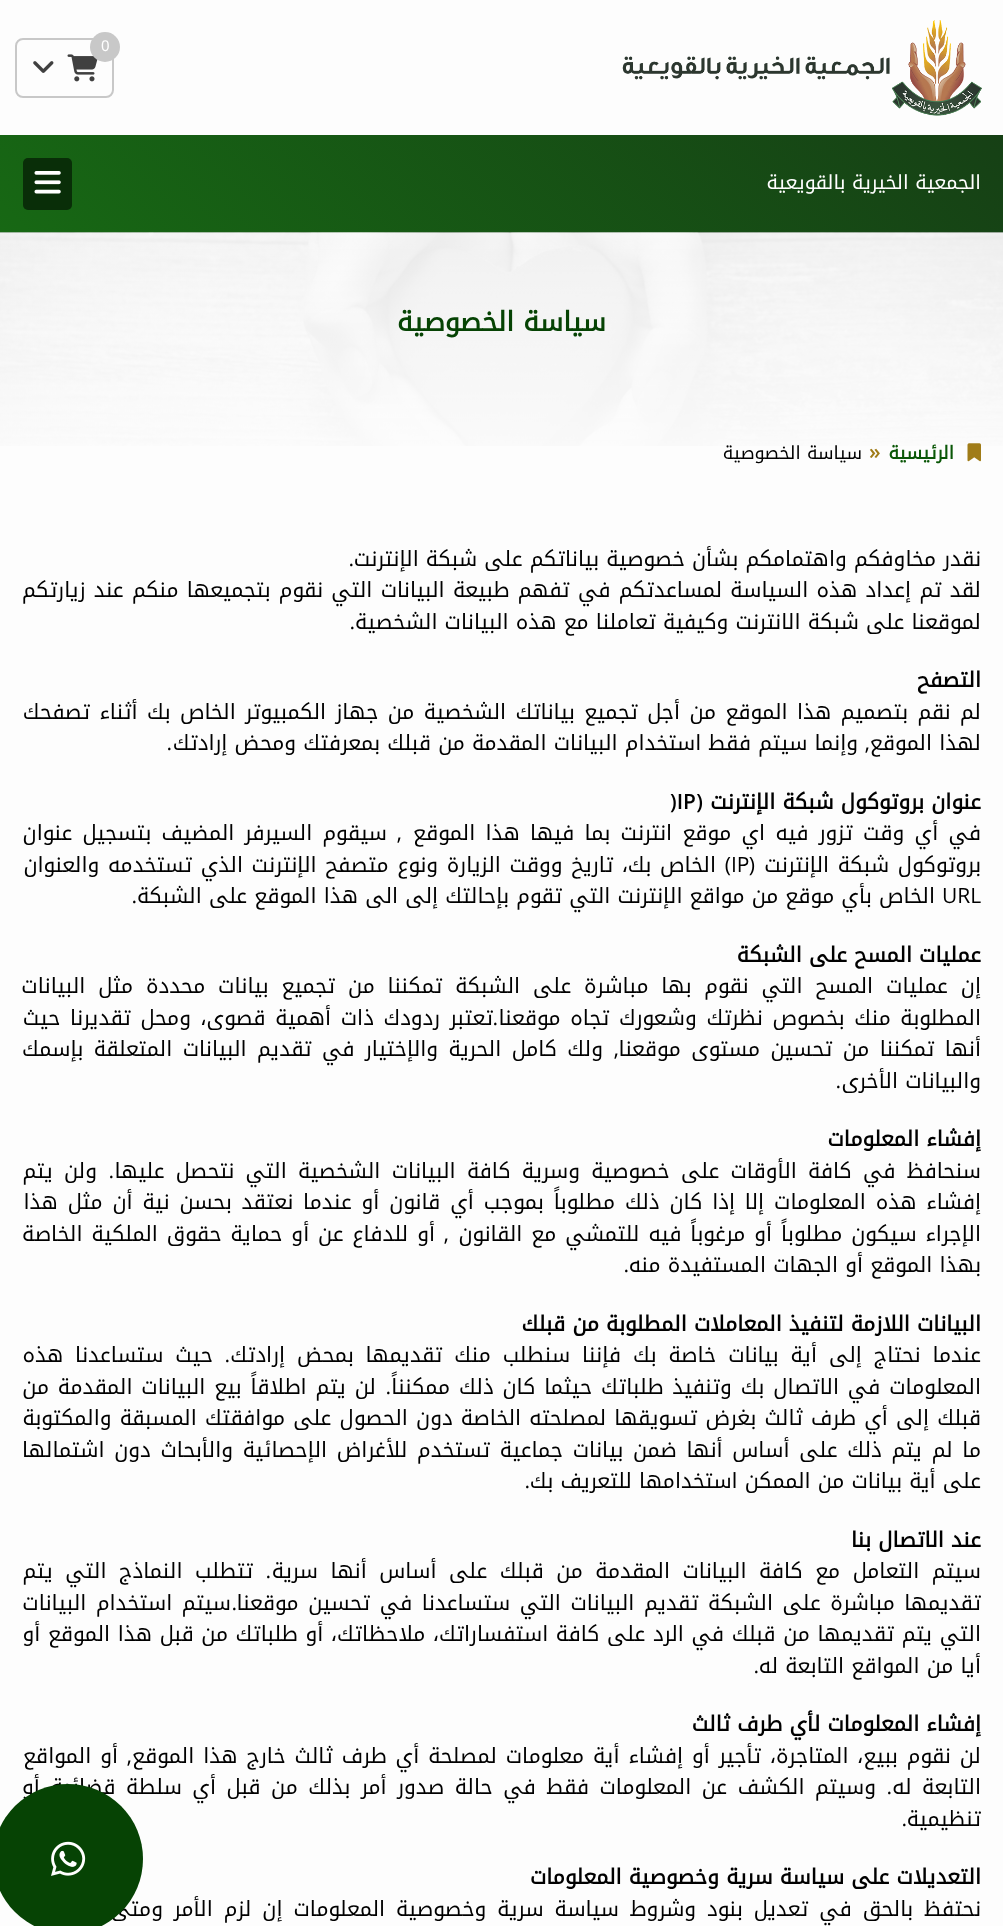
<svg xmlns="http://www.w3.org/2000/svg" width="1003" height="1926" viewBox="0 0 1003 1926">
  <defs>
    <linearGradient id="g1" gradientUnits="userSpaceOnUse" x1="227" y1="459" x2="777" y2="-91"><stop offset="0" stop-color="#176814"/><stop offset="1" stop-color="#164015"/></linearGradient>
  </defs>
  <rect width="100%" height="100%" fill="#fdfdfd"/>
  <image x="622" y="20" width="360" height="96" href="img1.png"/>
  <rect x="16" y="39" width="97" height="58" rx="7" fill="none" stroke="#c8c8c8" stroke-width="2"/>
  <image x="67" y="54" width="31" height="28" href="img2.png"/>
  <circle cx="105" cy="47" r="15" fill="#c8c8c8"/>
  <text x="101" y="51" font-family="Noto Kufi Arabic" font-size="15" fill="#ffffff">0</text>
  <image x="33" y="61" width="21" height="12" href="img3.png"/>
  <rect x="0" y="135" width="1003" height="98" fill="url(#g1)"/>
  <text x="981" y="189" font-family="Noto Kufi Arabic" font-size="19.5" direction="rtl" fill="#ffffff">الجمعية الخيرية بالقويعية</text>
  <rect x="23" y="158" width="49" height="52" rx="5" fill="#092e08"/>
  <image x="34" y="171" width="27" height="23" href="img4.png"/>
  <image x="0" y="232" width="1003" height="214" href="img5.png"/>
  <text x="606" y="331" font-family="Noto Kufi Arabic" font-size="27" font-weight="bold" direction="rtl" fill="#064304">سياسة الخصوصية</text>
  <image x="967" y="443" width="14" height="19" href="img6.png"/>
  <text x="954" y="459" font-family="Noto Kufi Arabic" font-size="18" font-weight="bold" direction="rtl" fill="#0a5707">الرئيسية</text>
  <text x="869" y="459" font-family="Open Sans" font-size="21" font-weight="600" fill="#a07c18">»</text>
  <text x="862" y="459" font-family="Noto Kufi Arabic" font-size="18" direction="rtl" fill="#000000">سياسة الخصوصية</text>
  <text x="981" y="566" font-family="Noto Kufi Arabic" font-size="21" direction="rtl" fill="#000000">نقدر مخاوفكم واهتمامكم بشأن خصوصية بياناتكم على شبكة الإنترنت</text>
  <text x="354" y="566" font-family="Open Sans" font-size="21" direction="rtl" fill="#000000">.</text>
  <text x="981" y="597" word-spacing="1.1" font-family="Noto Kufi Arabic" font-size="21" direction="rtl" fill="#000000">لقد تم إعداد هذه السياسة لمساعدتكم في تفهم طبيعة البيانات التي نقوم بتجميعها منكم عند زيارتكم</text>
  <text x="981" y="629" font-family="Noto Kufi Arabic" font-size="21" direction="rtl" fill="#000000">لموقعنا على شبكة الانترنت وكيفية تعاملنا مع هذه البيانات الشخصية</text>
  <text x="355" y="629" font-family="Open Sans" font-size="21" direction="rtl" fill="#000000">.</text>
  <text x="981" y="687" font-family="Noto Kufi Arabic" font-size="21" font-weight="bold" direction="rtl" fill="#000000">التصفح</text>
  <text x="981" y="719" word-spacing="2.25" font-family="Noto Kufi Arabic" font-size="21" direction="rtl" fill="#000000">لم نقم بتصميم هذا الموقع من أجل تجميع بياناتك الشخصية من جهاز الكمبيوتر الخاص بك أثناء تصفحك</text>
  <text x="981" y="750" font-family="Noto Kufi Arabic" font-size="21" direction="rtl" fill="#000000">لهذا الموقع</text>
  <text x="870" y="750" font-family="Open Sans" font-size="21" direction="rtl" fill="#000000">,</text>
  <text x="858" y="750" font-family="Noto Kufi Arabic" font-size="21" direction="rtl" fill="#000000">وإنما سيتم فقط استخدام البيانات المقدمة من قبلك بمعرفتك ومحض إرادتك</text>
  <text x="172" y="750" font-family="Open Sans" font-size="21" direction="rtl" fill="#000000">.</text>
  <text x="981" y="809" font-family="Noto Kufi Arabic" font-size="21" font-weight="bold" direction="rtl" fill="#000000">عنوان بروتوكول شبكة الإنترنت</text>
  <text x="703" y="809" font-family="Open Sans" font-size="21" font-weight="600" direction="rtl" fill="#000000">(</text>
  <text x="670" y="809" font-family="Open Sans" font-size="21" font-weight="600" fill="#000000">)IP</text>
  <text x="981" y="840" word-spacing="3.1" font-family="Noto Kufi Arabic" font-size="21" direction="rtl" fill="#000000">في أي وقت تزور فيه اي موقع انترنت بما فيها هذا الموقع</text>
  <text x="402" y="840" font-family="Open Sans" font-size="21" direction="rtl" fill="#000000">,</text>
  <text x="387" y="840" word-spacing="3.1" font-family="Noto Kufi Arabic" font-size="21" direction="rtl" fill="#000000">سيقوم السيرفر المضيف بتسجيل عنوان</text>
  <text x="981" y="872" word-spacing="1.5" font-family="Noto Kufi Arabic" font-size="21" direction="rtl" fill="#000000">بروتوكول شبكة الإنترنت</text>
  <text x="755" y="872" font-family="Open Sans" font-size="21" direction="rtl" fill="#000000">(</text>
  <text x="731" y="872" font-family="Open Sans" font-size="21" fill="#000000">IP</text>
  <text x="731" y="872" font-family="Open Sans" font-size="21" direction="rtl" fill="#000000">)</text>
  <text x="716" y="872" word-spacing="1.5" font-family="Noto Kufi Arabic" font-size="21" direction="rtl" fill="#000000">الخاص بك، تاريخ ووقت الزيارة ونوع متصفح الإنترنت الذي تستخدمه والعنوان</text>
  <text x="942" y="903" font-family="Open Sans" font-size="21" fill="#000000">URL</text>
  <text x="935" y="903" font-family="Noto Kufi Arabic" font-size="21" direction="rtl" fill="#000000">الخاص بأي موقع من مواقع الإنترنت التي تقوم بإحالتك إلى الى هذا الموقع على الشبكة</text>
  <text x="137" y="903" font-family="Open Sans" font-size="21" direction="rtl" fill="#000000">.</text>
  <text x="981" y="962" font-family="Noto Kufi Arabic" font-size="21" font-weight="bold" direction="rtl" fill="#000000">عمليات المسح على الشبكة</text>
  <text x="981" y="993" word-spacing="5.75" font-family="Noto Kufi Arabic" font-size="21" direction="rtl" fill="#000000">إن عمليات المسح التي نقوم بها مباشرة على الشبكة تمكننا من تجميع بيانات محددة مثل البيانات</text>
  <text x="981" y="1025" word-spacing="2.5" font-family="Noto Kufi Arabic" font-size="21" direction="rtl" fill="#000000">المطلوبة منك بخصوص نظرتك وشعورك تجاه موقعنا</text>
  <text x="498" y="1025" font-family="Open Sans" font-size="21" direction="rtl" fill="#000000">.</text>
  <text x="493" y="1025" word-spacing="2.5" font-family="Noto Kufi Arabic" font-size="21" direction="rtl" fill="#000000">تعتبر ردودك ذات أهمية قصوى، ومحل تقديرنا حيث</text>
  <text x="981" y="1056" word-spacing="3.25" font-family="Noto Kufi Arabic" font-size="21" direction="rtl" fill="#000000">أنها تمكننا من تحسين مستوى موقعنا</text>
  <text x="619" y="1056" font-family="Open Sans" font-size="21" direction="rtl" fill="#000000">,</text>
  <text x="603" y="1056" word-spacing="3.25" font-family="Noto Kufi Arabic" font-size="21" direction="rtl" fill="#000000">ولك كامل الحرية والإختيار في تقديم البيانات المتعلقة بإسمك</text>
  <text x="981" y="1088" font-family="Noto Kufi Arabic" font-size="21" direction="rtl" fill="#000000">والبيانات الأخرى</text>
  <text x="841" y="1088" font-family="Open Sans" font-size="21" direction="rtl" fill="#000000">.</text>
  <text x="981" y="1146" font-family="Noto Kufi Arabic" font-size="21" font-weight="bold" direction="rtl" fill="#000000">إفشاء المعلومات</text>
  <text x="981" y="1178" word-spacing="4.1" font-family="Noto Kufi Arabic" font-size="21" direction="rtl" fill="#000000">سنحافظ في كافة الأوقات على خصوصية وسرية كافة البيانات الشخصية التي نتحصل عليها</text>
  <text x="114" y="1178" font-family="Open Sans" font-size="21" direction="rtl" fill="#000000">.</text>
  <text x="97" y="1178" word-spacing="4.1" font-family="Noto Kufi Arabic" font-size="21" direction="rtl" fill="#000000">ولن يتم</text>
  <text x="981" y="1209" word-spacing="2.75" font-family="Noto Kufi Arabic" font-size="21" direction="rtl" fill="#000000">إفشاء هذه المعلومات إلا إذا كان ذلك مطلوباً بموجب أي قانون أو عندما نعتقد بحسن نية أن مثل هذا</text>
  <text x="981" y="1241" word-spacing="1.75" font-family="Noto Kufi Arabic" font-size="21" direction="rtl" fill="#000000">الإجراء سيكون مطلوباً أو مرغوباً فيه للتمشي مع القانون</text>
  <text x="449" y="1241" font-family="Open Sans" font-size="21" direction="rtl" fill="#000000">,</text>
  <text x="435" y="1241" word-spacing="1.75" font-family="Noto Kufi Arabic" font-size="21" direction="rtl" fill="#000000">أو للدفاع عن أو حماية حقوق الملكية الخاصة</text>
  <text x="981" y="1272" font-family="Noto Kufi Arabic" font-size="21" direction="rtl" fill="#000000">بهذا الموقع أو الجهات المستفيدة منه</text>
  <text x="629" y="1272" font-family="Open Sans" font-size="21" direction="rtl" fill="#000000">.</text>
  <text x="981" y="1331" font-family="Noto Kufi Arabic" font-size="21" font-weight="bold" direction="rtl" fill="#000000">البيانات اللازمة لتنفيذ المعاملات المطلوبة من قبلك</text>
  <text x="981" y="1362" word-spacing="4.75" font-family="Noto Kufi Arabic" font-size="21" direction="rtl" fill="#000000">عندما نحتاج إلى أية بيانات خاصة بك فإننا سنطلب منك تقديمها بمحض إرادتك</text>
  <text x="230" y="1362" font-family="Open Sans" font-size="21" direction="rtl" fill="#000000">.</text>
  <text x="213" y="1362" word-spacing="4.75" font-family="Noto Kufi Arabic" font-size="21" direction="rtl" fill="#000000">حيث ستساعدنا هذه</text>
  <text x="981" y="1394" word-spacing="1.75" font-family="Noto Kufi Arabic" font-size="21" direction="rtl" fill="#000000">المعلومات في الاتصال بك وتنفيذ طلباتك حيثما كان ذلك ممكنناً</text>
  <text x="391" y="1394" font-family="Open Sans" font-size="21" direction="rtl" fill="#000000">.</text>
  <text x="376" y="1394" word-spacing="1.75" font-family="Noto Kufi Arabic" font-size="21" direction="rtl" fill="#000000">لن يتم اطلاقاً بيع البيانات المقدمة من</text>
  <text x="981" y="1425" word-spacing="1" font-family="Noto Kufi Arabic" font-size="21" direction="rtl" fill="#000000">قبلك إلى أي طرف ثالث بغرض تسويقها لمصلحته الخاصة دون الحصول على موافقتك المسبقة والمكتوبة</text>
  <text x="981" y="1457" word-spacing="2.6" font-family="Noto Kufi Arabic" font-size="21" direction="rtl" fill="#000000">ما لم يتم ذلك على أساس أنها ضمن بيانات جماعية تستخدم للأغراض الإحصائية والأبحاث دون اشتمالها</text>
  <text x="981" y="1488" font-family="Noto Kufi Arabic" font-size="21" direction="rtl" fill="#000000">على أية بيانات من الممكن استخدامها للتعريف بك</text>
  <text x="530" y="1488" font-family="Open Sans" font-size="21" direction="rtl" fill="#000000">.</text>
  <text x="981" y="1547" font-family="Noto Kufi Arabic" font-size="21" font-weight="bold" direction="rtl" fill="#000000">عند الاتصال بنا</text>
  <text x="981" y="1578" word-spacing="5.4" font-family="Noto Kufi Arabic" font-size="21" direction="rtl" fill="#000000">سيتم التعامل مع كافة البيانات المقدمة من قبلك على أساس أنها سرية</text>
  <text x="271" y="1578" font-family="Open Sans" font-size="21" direction="rtl" fill="#000000">.</text>
  <text x="253" y="1578" word-spacing="5.4" font-family="Noto Kufi Arabic" font-size="21" direction="rtl" fill="#000000">تتطلب النماذج التي يتم</text>
  <text x="981" y="1610" word-spacing="2.4" font-family="Noto Kufi Arabic" font-size="21" direction="rtl" fill="#000000">تقديمها مباشرة على الشبكة تقديم البيانات التي ستساعدنا في تحسين موقعنا</text>
  <text x="237" y="1610" font-family="Open Sans" font-size="21" direction="rtl" fill="#000000">.</text>
  <text x="231" y="1610" word-spacing="2.4" font-family="Noto Kufi Arabic" font-size="21" direction="rtl" fill="#000000">سيتم استخدام البيانات</text>
  <text x="981" y="1641" word-spacing="0.5" font-family="Noto Kufi Arabic" font-size="21" direction="rtl" fill="#000000">التي يتم تقديمها من قبلك في الرد على كافة استفساراتك، ملاحظاتك، أو طلباتك من قبل هذا الموقع أو</text>
  <text x="981" y="1673" font-family="Noto Kufi Arabic" font-size="21" direction="rtl" fill="#000000">أيا من المواقع التابعة له</text>
  <text x="759" y="1673" font-family="Open Sans" font-size="21" direction="rtl" fill="#000000">.</text>
  <text x="981" y="1731" font-family="Noto Kufi Arabic" font-size="21" font-weight="bold" direction="rtl" fill="#000000">إفشاء المعلومات لأي طرف ثالث</text>
  <text x="981" y="1763" word-spacing="1.75" font-family="Noto Kufi Arabic" font-size="21" direction="rtl" fill="#000000">لن نقوم ببيع، المتاجرة، تأجير أو إفشاء أية معلومات لمصلحة أي طرف ثالث خارج هذا الموقع</text>
  <text x="132" y="1763" font-family="Open Sans" font-size="21" direction="rtl" fill="#000000">,</text>
  <text x="118" y="1763" word-spacing="1.75" font-family="Noto Kufi Arabic" font-size="21" direction="rtl" fill="#000000">أو المواقع</text>
  <text x="981" y="1794" word-spacing="3.4" font-family="Noto Kufi Arabic" font-size="21" direction="rtl" fill="#000000">التابعة له</text>
  <text x="892" y="1794" font-family="Open Sans" font-size="21" direction="rtl" fill="#000000">.</text>
  <text x="876" y="1794" word-spacing="3.4" font-family="Noto Kufi Arabic" font-size="21" direction="rtl" fill="#000000">وسيتم الكشف عن المعلومات فقط في حالة صدور أمر بذلك من قبل أي سلطة قضائية أو</text>
  <text x="981" y="1826" font-family="Noto Kufi Arabic" font-size="21" direction="rtl" fill="#000000">تنظيمية</text>
  <text x="907" y="1826" font-family="Open Sans" font-size="21" direction="rtl" fill="#000000">.</text>
  <text x="981" y="1884" font-family="Noto Kufi Arabic" font-size="21" font-weight="bold" direction="rtl" fill="#000000">التعديلات على سياسة سرية وخصوصية المعلومات</text>
  <text x="981" y="1916" word-spacing="3.75" font-family="Noto Kufi Arabic" font-size="21" direction="rtl" fill="#000000">نحتفظ بالحق في تعديل بنود وشروط سياسة سرية وخصوصية المعلومات إن لزم الأمر ومتى كان ذلك</text>
  <circle cx="68" cy="1859" r="75" fill="#064304"/>
  <image x="51" y="1841" width="35" height="35" href="img7.png"/>
</svg>
